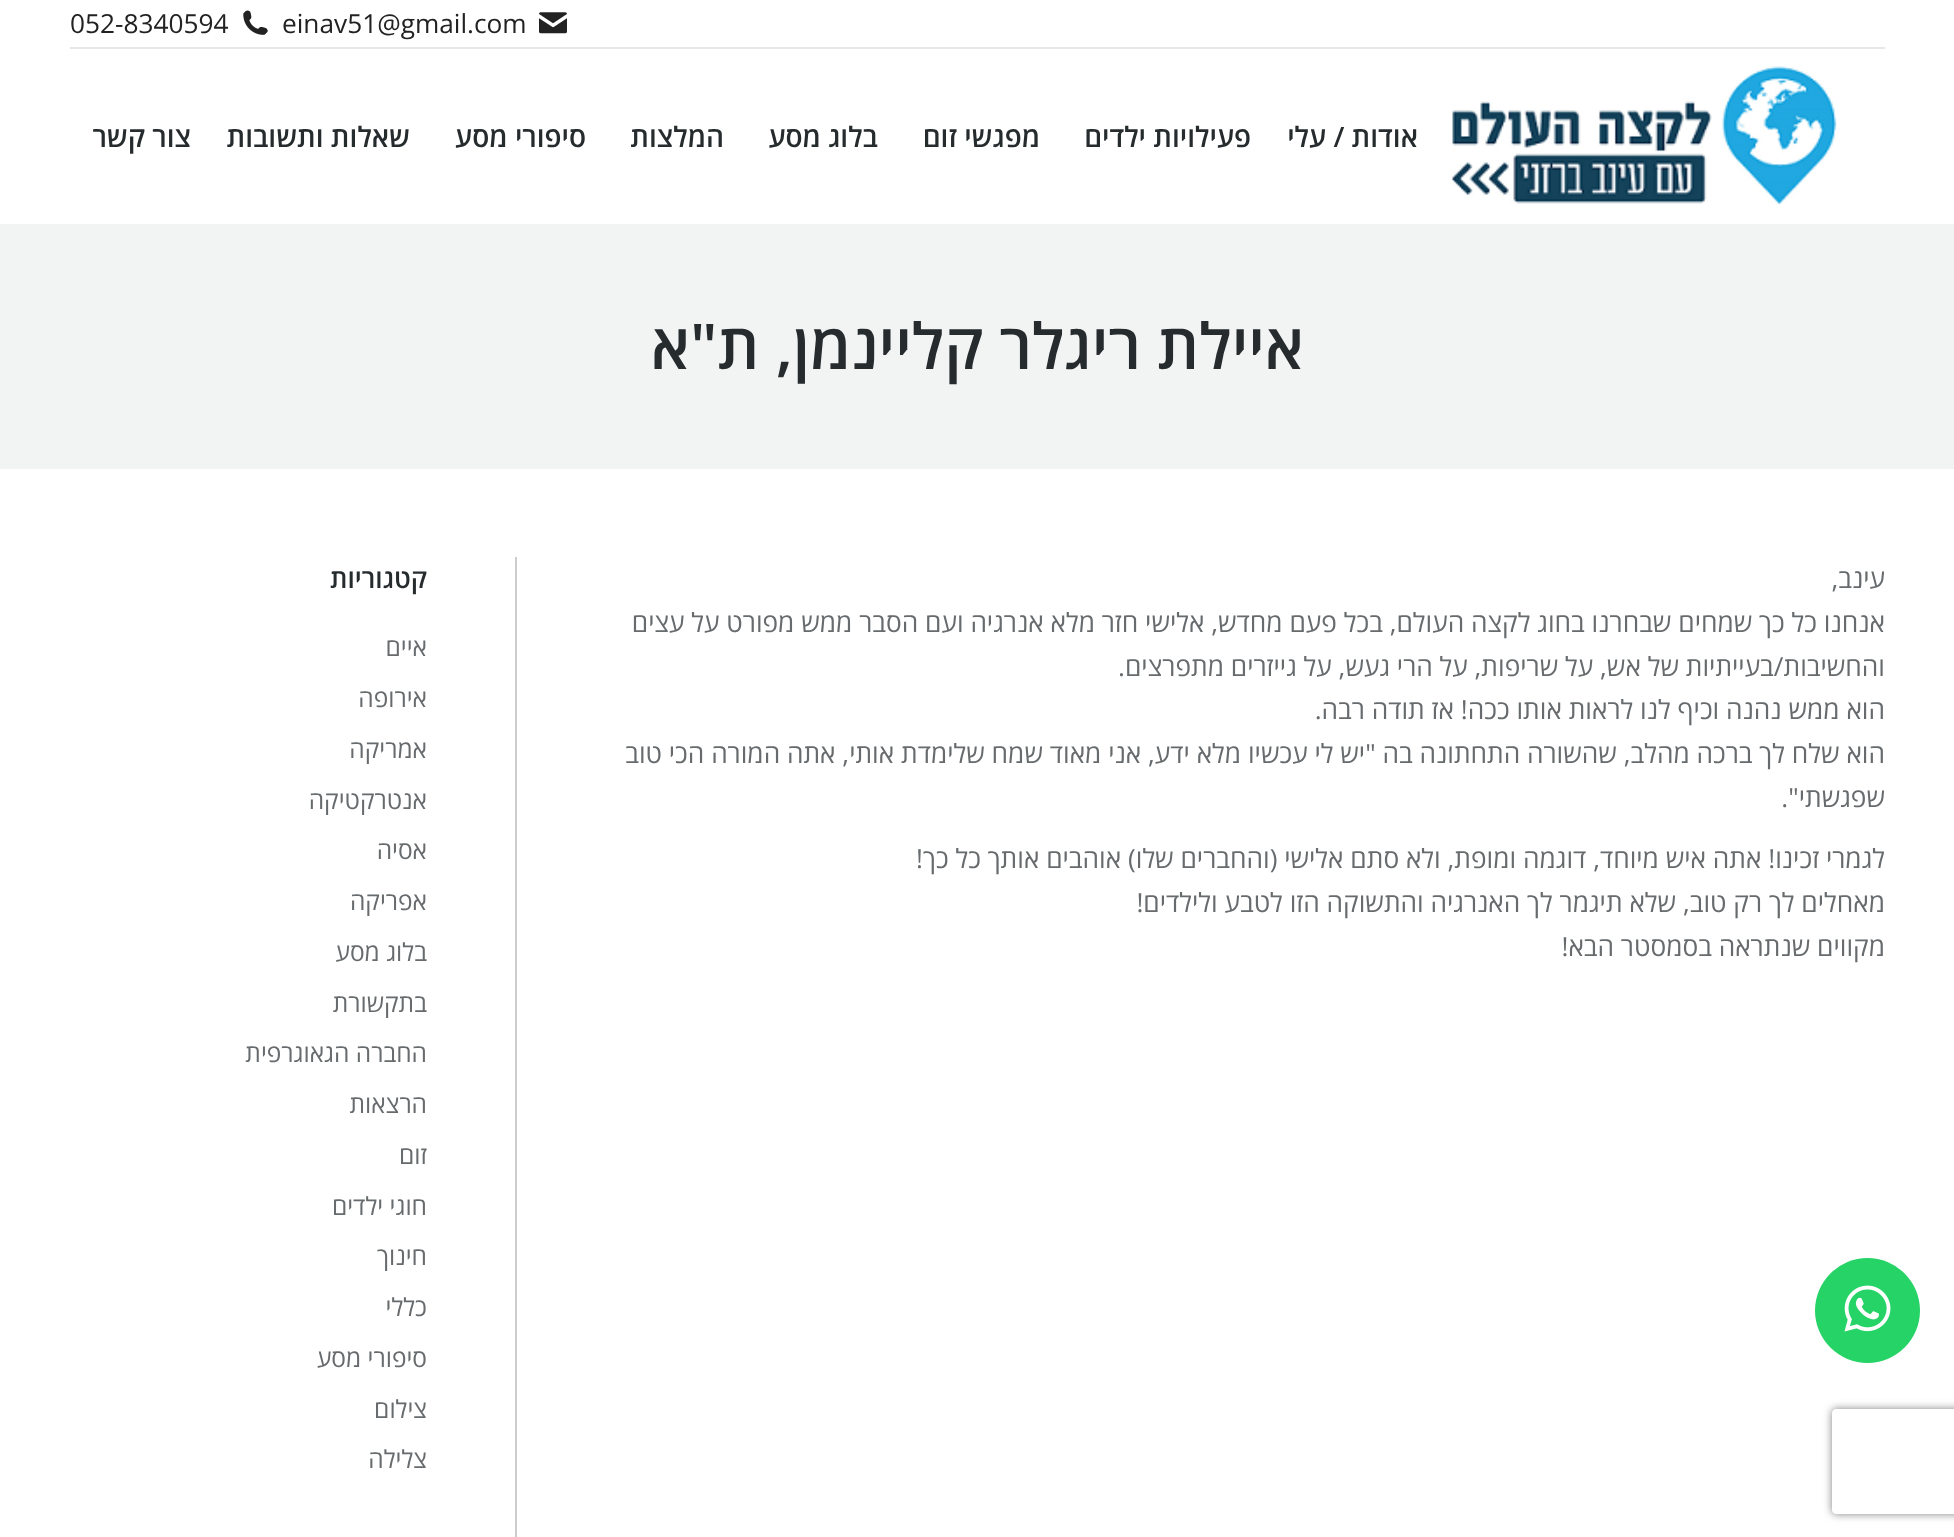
<svg xmlns="http://www.w3.org/2000/svg" width="1954" height="1537" viewBox="0 0 1954 1537">
  <defs>
    <clipPath id="clip1"><path d="M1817 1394H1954V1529H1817ZM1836 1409H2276C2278 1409 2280 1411 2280 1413V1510C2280 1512 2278 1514 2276 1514H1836C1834 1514 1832 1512 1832 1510V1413C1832 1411 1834 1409 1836 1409Z" clip-rule="evenodd"/></clipPath>
    <filter id="blur1" x="-50%" y="-200%" width="200%" height="500%"><feGaussianBlur stdDeviation="4.5"/></filter>
  </defs>
  <rect width="100%" height="100%" fill="#ffffff"/>
  <image x="539" y="12" width="28" height="22" href="img1.png"/>
  <text x="282" y="33" font-family="Open Sans" font-size="26.25" fill="#222222">einav51@gmail.com</text>
  <image x="243" y="10" width="25" height="25" href="img2.png"/>
  <text x="70" y="33" font-family="Open Sans" font-size="26.25" fill="#222222">052-8340594</text>
  <rect x="70" y="47" width="1815" height="2" fill="#e7e7e8"/>
  <image x="1452" y="66" width="385" height="139" href="img3.png"/>
  <text x="1418" y="147" font-family="Open Sans" font-size="28" font-weight="600" direction="rtl" fill="#262b2e">אודות / עלי</text>
  <text x="1251" y="147" font-family="Open Sans" font-size="28" font-weight="600" direction="rtl" fill="#262b2e">פעילויות ילדים</text>
  <text x="1040" y="147" font-family="Open Sans" font-size="28" font-weight="600" direction="rtl" fill="#262b2e">מפגשי זום</text>
  <text x="878" y="147" font-family="Open Sans" font-size="28" font-weight="600" direction="rtl" fill="#262b2e">בלוג מסע</text>
  <text x="724" y="147" font-family="Open Sans" font-size="28" font-weight="600" direction="rtl" fill="#262b2e">המלצות</text>
  <text x="586" y="147" font-family="Open Sans" font-size="28" font-weight="600" direction="rtl" fill="#262b2e">סיפורי מסע</text>
  <text x="410" y="147" font-family="Open Sans" font-size="28" font-weight="600" direction="rtl" fill="#262b2e">שאלות ותשובות</text>
  <text x="191" y="147" font-family="Open Sans" font-size="28" font-weight="600" direction="rtl" fill="#262b2e">צור קשר</text>
  <rect x="0" y="224" width="1954" height="245" fill="#f2f3f3"/>
  <text x="1304" y="369" font-family="Open Sans" font-size="63" font-weight="600" direction="rtl" fill="#262b2e">איילת ריגלר קליינמן, ת"א</text>
  <text x="1885" y="588" font-family="Open Sans" font-size="26.25" direction="rtl" fill="#676b6d">עינב,</text>
  <text x="1885" y="632" font-family="Open Sans" font-size="26.25" direction="rtl" fill="#676b6d">אנחנו כל כך שמחים שבחרנו בחוג לקצה העולם, בכל פעם מחדש, אלישי חזר מלא אנרגיה ועם הסבר ממש מפורט על עצים</text>
  <text x="1885" y="676" font-family="Open Sans" font-size="26.25" direction="rtl" fill="#676b6d">והחשיבות/בעייתיות של אש, על שריפות, על הרי געש, על גייזרים מתפרצים.</text>
  <text x="1885" y="719" font-family="Open Sans" font-size="26.25" direction="rtl" fill="#676b6d">הוא ממש נהנה וכיף לנו לראות אותו ככה! אז תודה רבה.</text>
  <text x="1885" y="763" font-family="Open Sans" font-size="26.25" direction="rtl" fill="#676b6d">הוא שלח לך ברכה מהלב, שהשורה התחתונה בה "יש לי עכשיו מלא ידע, אני מאוד שמח שלימדת אותי, אתה המורה הכי טוב</text>
  <text x="1885" y="807" font-family="Open Sans" font-size="26.25" direction="rtl" fill="#676b6d">שפגשתי".</text>
  <text x="1885" y="868" font-family="Open Sans" font-size="26.25" direction="rtl" fill="#676b6d">לגמרי זכינו! אתה איש מיוחד, דוגמה ומופת, ולא סתם אלישי (והחברים שלו) אוהבים אותך כל כך!</text>
  <text x="1885" y="912" font-family="Open Sans" font-size="26.25" direction="rtl" fill="#676b6d">מאחלים לך רק טוב, שלא תיגמר לך האנרגיה והתשוקה הזו לטבע ולילדים!</text>
  <text x="1885" y="956" font-family="Open Sans" font-size="26.25" direction="rtl" fill="#676b6d">מקווים שנתראה בסמסטר הבא!</text>
  <rect x="515" y="557" width="2" height="980" fill="#cccccc"/>
  <text x="427" y="588" font-family="Open Sans" font-size="26.25" font-weight="600" direction="rtl" fill="#262b2e">קטגוריות</text>
  <text x="427" y="656" font-family="Open Sans" font-size="24.5" direction="rtl" fill="#676b6d">איים</text>
  <text x="427" y="707" font-family="Open Sans" font-size="24.5" direction="rtl" fill="#676b6d">אירופה</text>
  <text x="427" y="758" font-family="Open Sans" font-size="24.5" direction="rtl" fill="#676b6d">אמריקה</text>
  <text x="427" y="809" font-family="Open Sans" font-size="24.5" direction="rtl" fill="#676b6d">אנטרקטיקה</text>
  <text x="427" y="859" font-family="Open Sans" font-size="24.5" direction="rtl" fill="#676b6d">אסיה</text>
  <text x="427" y="910" font-family="Open Sans" font-size="24.5" direction="rtl" fill="#676b6d">אפריקה</text>
  <text x="427" y="961" font-family="Open Sans" font-size="24.5" direction="rtl" fill="#676b6d">בלוג מסע</text>
  <text x="427" y="1012" font-family="Open Sans" font-size="24.5" direction="rtl" fill="#676b6d">בתקשורת</text>
  <text x="427" y="1062" font-family="Open Sans" font-size="24.5" direction="rtl" fill="#676b6d">החברה הגאוגרפית</text>
  <text x="427" y="1113" font-family="Open Sans" font-size="24.5" direction="rtl" fill="#676b6d">הרצאות</text>
  <text x="427" y="1164" font-family="Open Sans" font-size="24.5" direction="rtl" fill="#676b6d">זום</text>
  <text x="427" y="1215" font-family="Open Sans" font-size="24.5" direction="rtl" fill="#676b6d">חוגי ילדים</text>
  <text x="427" y="1265" font-family="Open Sans" font-size="24.5" direction="rtl" fill="#676b6d">חינוך</text>
  <text x="427" y="1316" font-family="Open Sans" font-size="24.5" direction="rtl" fill="#676b6d">כללי</text>
  <text x="427" y="1367" font-family="Open Sans" font-size="24.5" direction="rtl" fill="#676b6d">סיפורי מסע</text>
  <text x="427" y="1418" font-family="Open Sans" font-size="24.5" direction="rtl" fill="#676b6d">צילום</text>
  <text x="427" y="1468" font-family="Open Sans" font-size="24.5" direction="rtl" fill="#676b6d">צלילה</text>
  <circle cx="1867.5" cy="1310.5" r="52.5" fill="#25d366"/>
  <image x="1844" y="1285" width="47" height="47" href="img4.png"/>
  <g clip-path="url(#clip1)">
    <rect x="1832" y="1409" width="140" height="105" rx="4" fill="#808080" filter="url(#blur1)"/>
  </g>
</svg>
